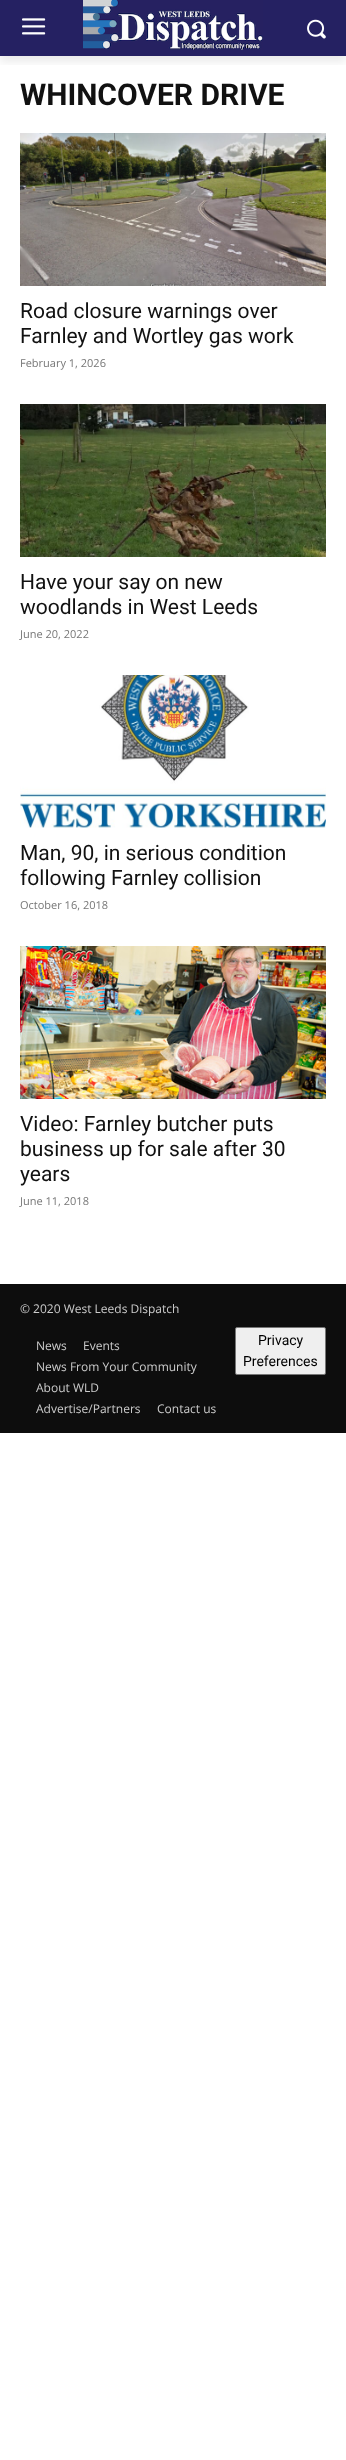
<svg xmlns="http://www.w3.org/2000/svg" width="346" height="2460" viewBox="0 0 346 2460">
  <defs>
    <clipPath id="clip1"><rect x="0" y="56" width="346" height="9"/></clipPath>
    <filter id="blur1" x="-50%" y="-200%" width="200%" height="500%"><feGaussianBlur stdDeviation="4"/></filter>
  </defs>
  <rect width="100%" height="100%" fill="#ffffff"/>
  <rect x="0" y="0" width="346" height="56" fill="#252162"/>
  <image x="22" y="18" width="24" height="17" href="img1.png"/>
  <image x="83" y="0" width="180" height="50" href="img2.png"/>
  <image x="307" y="19" width="19" height="20" href="img3.png"/>
  <g clip-path="url(#clip1)">
    <rect x="0" y="6" width="346" height="56" fill="#000000" fill-opacity="0.08" filter="url(#blur1)"/>
  </g>
  <text x="20" y="105" font-family="Roboto" font-size="30" font-weight="bold" fill="#111111">WHINCOVER DRIVE</text>
  <image x="20" y="133" width="306" height="153" href="img4.png"/>
  <text x="20" y="318" font-family="Roboto" font-size="21" fill="#111111">Road closure warnings over</text>
  <text x="20" y="343" font-family="Roboto" font-size="21" fill="#111111">Farnley and Wortley gas work</text>
  <text x="20" y="367" font-family="Open Sans" font-size="11" fill="#767676">February 1, 2026</text>
  <image x="20" y="404" width="306" height="153" href="img5.png"/>
  <text x="20" y="589" font-family="Roboto" font-size="21" fill="#111111">Have your say on new</text>
  <text x="20" y="614" font-family="Roboto" font-size="21" fill="#111111">woodlands in West Leeds</text>
  <text x="20" y="638" font-family="Open Sans" font-size="11" fill="#767676">June 20, 2022</text>
  <image x="20" y="675" width="306" height="153" href="img6.png"/>
  <text x="20" y="860" font-family="Roboto" font-size="21" fill="#111111">Man, 90, in serious condition</text>
  <text x="20" y="885" font-family="Roboto" font-size="21" fill="#111111">following Farnley collision</text>
  <text x="20" y="909" font-family="Open Sans" font-size="11" fill="#767676">October 16, 2018</text>
  <image x="20" y="946" width="306" height="153" href="img7.png"/>
  <text x="20" y="1131" font-family="Roboto" font-size="21" fill="#111111">Video: Farnley butcher puts</text>
  <text x="20" y="1156" font-family="Roboto" font-size="21" fill="#111111">business up for sale after 30</text>
  <text x="20" y="1181" font-family="Roboto" font-size="21" fill="#111111">years</text>
  <text x="20" y="1205" font-family="Open Sans" font-size="11" fill="#767676">June 11, 2018</text>
  <rect x="0" y="1284" width="346" height="149" fill="#0d0d0d"/>
  <text x="20" y="1313" font-family="Open Sans" font-size="12" fill="#cccccc">© 2020 West Leeds Dispatch</text>
  <text x="36" y="1350" font-family="Open Sans" font-size="12" fill="#cccccc">News</text>
  <text x="83" y="1350" font-family="Open Sans" font-size="12" fill="#cccccc">Events</text>
  <text x="36" y="1371" font-family="Open Sans" font-size="12" fill="#cccccc">News From Your Community</text>
  <text x="36" y="1392" font-family="Open Sans" font-size="12" fill="#cccccc">About WLD</text>
  <text x="36" y="1413" font-family="Open Sans" font-size="12" fill="#cccccc">Advertise/Partners</text>
  <text x="157" y="1413" font-family="Open Sans" font-size="12" fill="#cccccc">Contact us</text>
  <rect x="235.5" y="1327.5" width="90" height="47" rx="1.5" fill="#efefef" stroke="#767676"/>
  <text x="258" y="1345" font-family="Roboto" font-size="14" fill="#000000">Privacy</text>
  <text x="243" y="1366" font-family="Roboto" font-size="14" fill="#000000">Preferences</text>
</svg>
